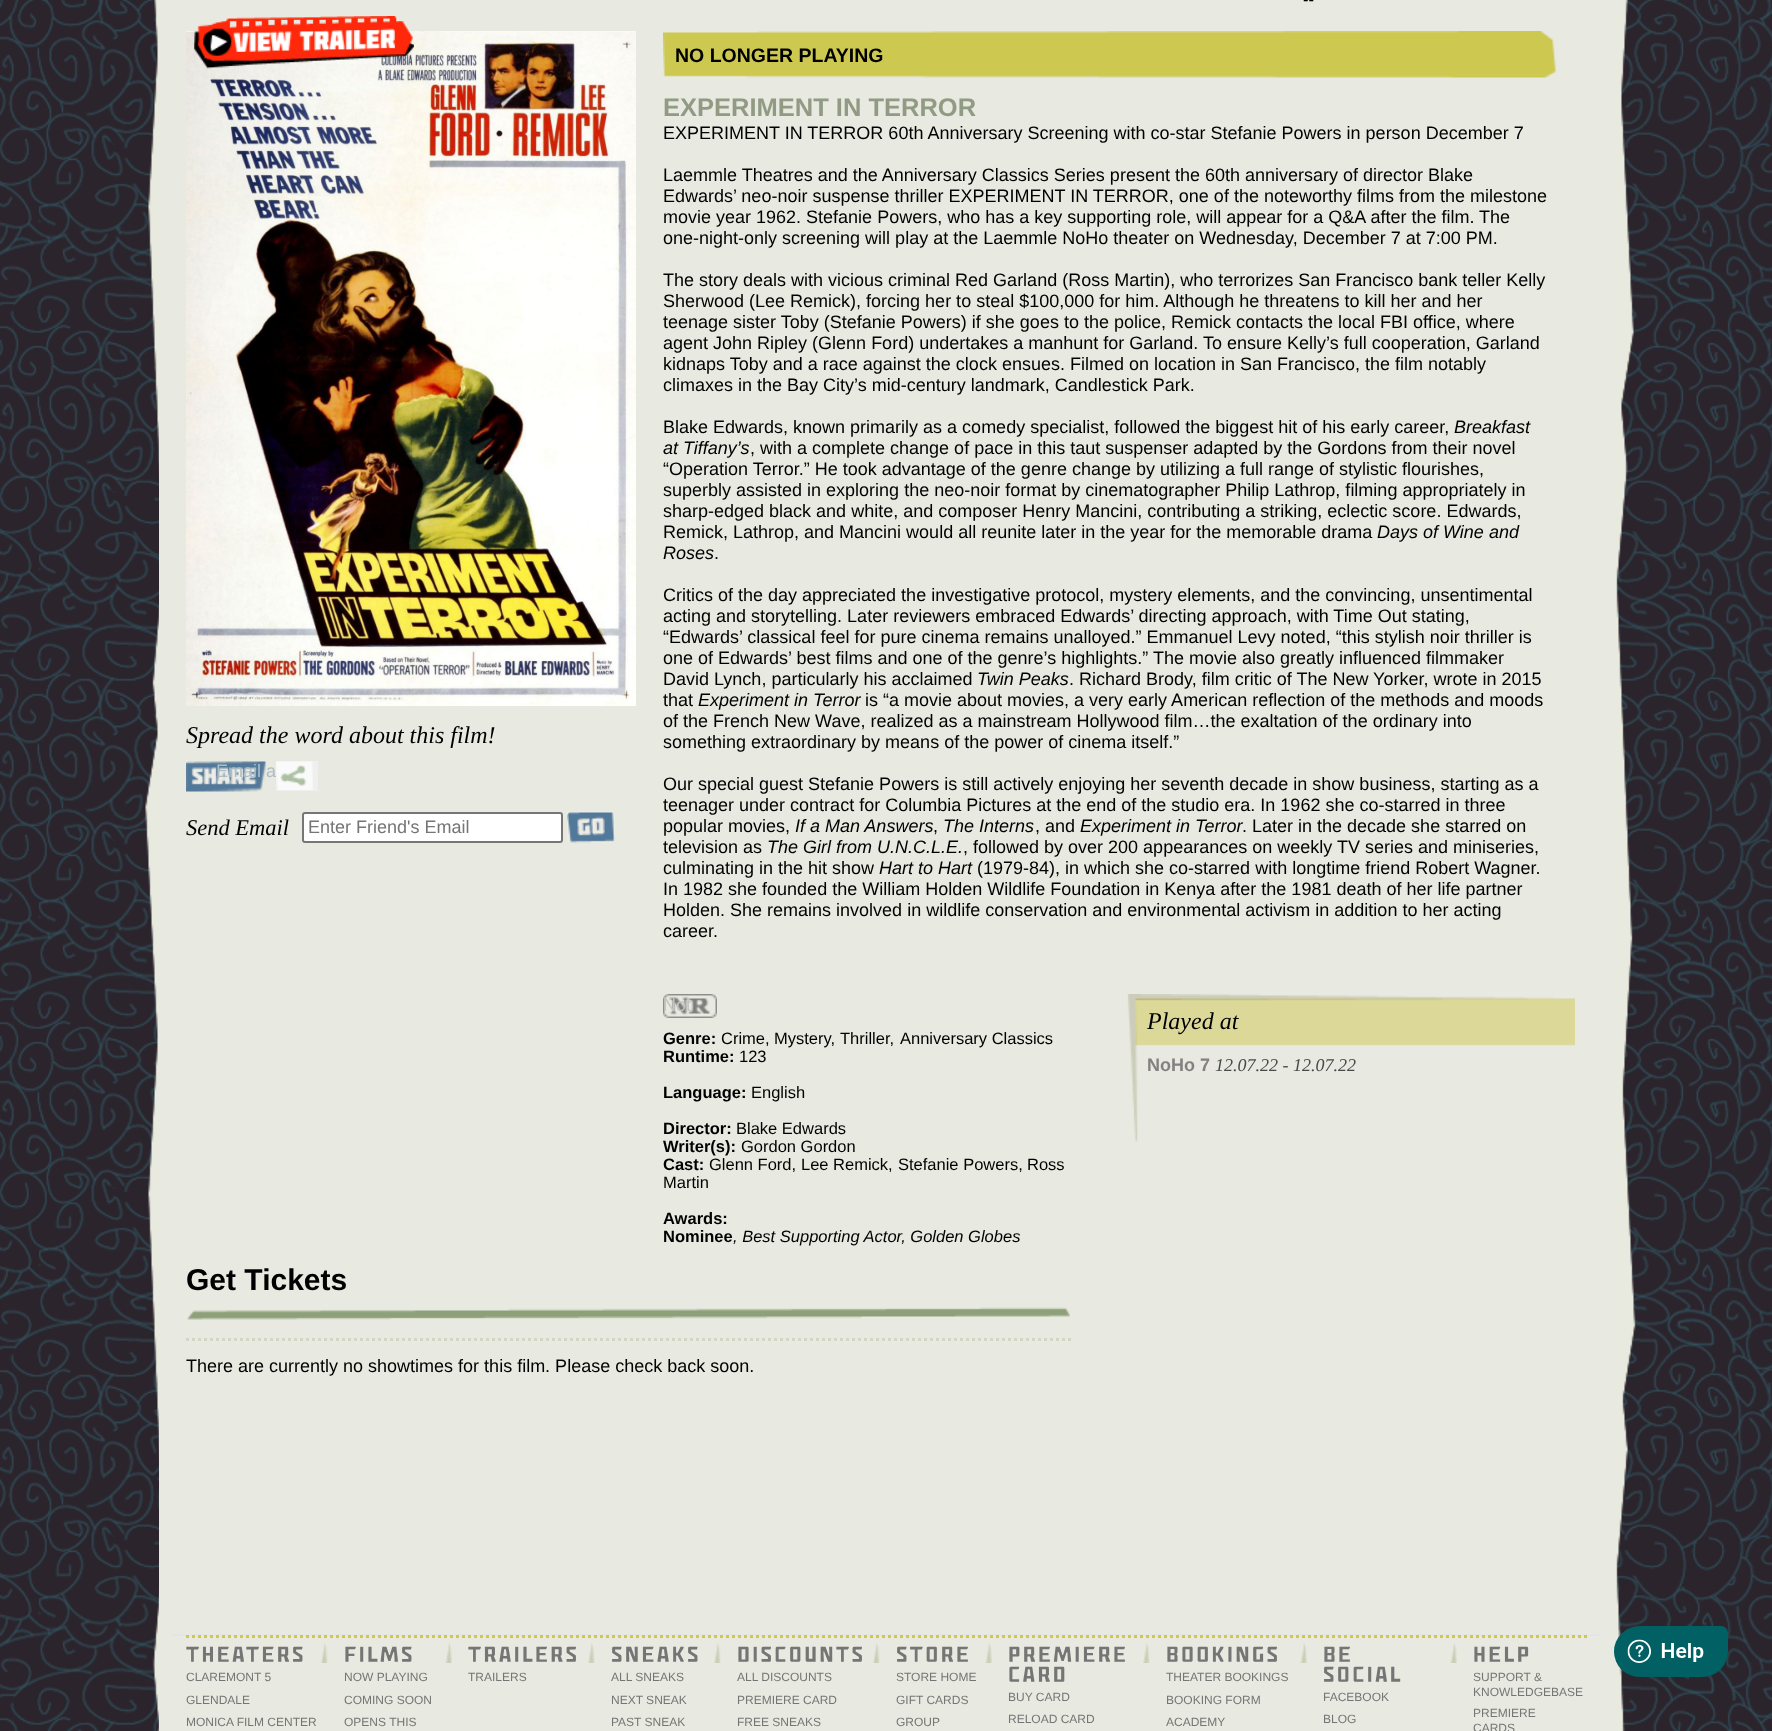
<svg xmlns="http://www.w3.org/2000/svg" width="1772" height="1731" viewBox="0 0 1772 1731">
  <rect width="100%" height="100%" fill="#ffffff"/>
  <image x="0" y="0" width="1772" height="1731" href="img1.png"/>
  <rect x="159" y="0" width="1455" height="1731" fill="#e8e9e0"/>
  <image x="145" y="0" width="14" height="1731" href="img2.png"/>
  <text x="1303" y="5" font-family="Liberation Sans" font-size="16.5" fill="#000000">--</text>
  <image x="186" y="31" width="450" height="675" href="img4.png"/>
  <image x="194" y="16" width="220" height="53" href="img3.png"/>
  <text x="186" y="743" font-family="Liberation Serif" font-size="24" font-style="italic" fill="#000000">Spread the word about this film!</text>
  <image x="186" y="760" width="80" height="32" href="img5.png"/>
  <text x="216" y="777" font-family="Liberation Sans" font-size="18" fill="#aebdc6">Email a</text>
  <rect x="276" y="761" width="42" height="30" fill="#efefef"/>
  <image x="276" y="761" width="37" height="29" href="img6.png"/>
  <text x="186" y="835" font-family="Liberation Serif" font-size="22.5" font-style="italic" fill="#000000">Send Email</text>
  <rect x="303" y="813" width="259" height="29" rx="2" fill="#ffffff" stroke="#767676" stroke-width="2"/>
  <text x="308" y="833" font-family="Liberation Sans" font-size="18" fill="#757575">Enter Friend's Email</text>
  <image x="567" y="811" width="48" height="32" href="img7.png"/>
  <image x="663" y="31" width="893" height="47" href="img8.png"/>
  <text x="675" y="62" font-family="Liberation Sans" font-size="19.5" font-weight="bold" fill="#000000">NO LONGER PLAYING</text>
  <text x="663" y="116" font-family="Liberation Sans" font-size="25.5" font-weight="bold" fill="#919b83">EXPERIMENT IN TERROR</text>
  <text x="663" y="139" font-family="Liberation Sans" font-size="18" fill="#000000">EXPERIMENT IN TERROR 60th Anniversary Screening with co-star Stefanie Powers in person December 7</text>
  <text x="663" y="181" font-family="Liberation Sans" font-size="18" fill="#000000">Laemmle Theatres and the Anniversary Classics Series present the 60th anniversary of director Blake</text>
  <text x="663" y="202" font-family="Liberation Sans" font-size="18" fill="#000000">Edwards’ neo-noir suspense thriller EXPERIMENT IN TERROR, one of the noteworthy films from the milestone</text>
  <text x="663" y="223" font-family="Liberation Sans" font-size="18" fill="#000000">movie year 1962. Stefanie Powers, who has a key supporting role, will appear for a Q&amp;A after the film. The</text>
  <text x="663" y="244" font-family="Liberation Sans" font-size="18" fill="#000000">one-night-only screening will play at the Laemmle NoHo theater on Wednesday, December 7 at 7:00 PM.</text>
  <text x="663" y="286" font-family="Liberation Sans" font-size="18" fill="#000000">The story deals with vicious criminal Red Garland (Ross Martin), who terrorizes San Francisco bank teller Kelly</text>
  <text x="663" y="307" font-family="Liberation Sans" font-size="18" fill="#000000">Sherwood (Lee Remick), forcing her to steal $100,000 for him. Although he threatens to kill her and her</text>
  <text x="663" y="328" font-family="Liberation Sans" font-size="18" fill="#000000">teenage sister Toby (Stefanie Powers) if she goes to the police, Remick contacts the local FBI office, where</text>
  <text x="663" y="349" font-family="Liberation Sans" font-size="18" fill="#000000">agent John Ripley (Glenn Ford) undertakes a manhunt for Garland. To ensure Kelly’s full cooperation, Garland</text>
  <text x="663" y="370" font-family="Liberation Sans" font-size="18" fill="#000000">kidnaps Toby and a race against the clock ensues. Filmed on location in San Francisco, the film notably</text>
  <text x="663" y="391" font-family="Liberation Sans" font-size="18" fill="#000000">climaxes in the Bay City’s mid-century landmark, Candlestick Park.</text>
  <text x="663" y="433" font-family="Liberation Sans" font-size="18" fill="#000000">Blake Edwards, known primarily as a comedy specialist, followed the biggest hit of his early career,</text>
  <text x="1454" y="433" font-family="Liberation Sans" font-size="18" font-style="italic" fill="#000000">Breakfast</text>
  <text x="663" y="454" font-family="Liberation Sans" font-size="18" font-style="italic" fill="#000000">at Tiffany’s</text>
  <text x="750" y="454" font-family="Liberation Sans" font-size="18" fill="#000000">, with a complete change of pace in this taut suspenser adapted by the Gordons from their novel</text>
  <text x="663" y="475" font-family="Liberation Sans" font-size="18" fill="#000000">“Operation Terror.” He took advantage of the genre change by utilizing a full range of stylistic flourishes,</text>
  <text x="663" y="496" font-family="Liberation Sans" font-size="18" fill="#000000">superbly assisted in exploring the neo-noir format by cinematographer Philip Lathrop, filming appropriately in</text>
  <text x="663" y="517" font-family="Liberation Sans" font-size="18" fill="#000000">sharp-edged black and white, and composer Henry Mancini, contributing a striking, eclectic score. Edwards,</text>
  <text x="663" y="538" font-family="Liberation Sans" font-size="18" fill="#000000">Remick, Lathrop, and Mancini would all reunite later in the year for the memorable drama</text>
  <text x="1377" y="538" font-family="Liberation Sans" font-size="18" font-style="italic" fill="#000000">Days of Wine and</text>
  <text x="663" y="559" font-family="Liberation Sans" font-size="18" font-style="italic" fill="#000000">Roses</text>
  <text x="714" y="559" font-family="Liberation Sans" font-size="18" fill="#000000">.</text>
  <text x="663" y="601" font-family="Liberation Sans" font-size="18" fill="#000000">Critics of the day appreciated the investigative protocol, mystery elements, and the convincing, unsentimental</text>
  <text x="663" y="622" font-family="Liberation Sans" font-size="18" fill="#000000">acting and storytelling. Later reviewers embraced Edwards’ directing approach, with Time Out stating,</text>
  <text x="663" y="643" font-family="Liberation Sans" font-size="18" fill="#000000">“Edwards’ classical feel for pure cinema remains unalloyed.” Emmanuel Levy noted, “this stylish noir thriller is</text>
  <text x="663" y="664" font-family="Liberation Sans" font-size="18" fill="#000000">one of Edwards’ best films and one of the genre’s highlights.” The movie also greatly influenced filmmaker</text>
  <text x="663" y="685" font-family="Liberation Sans" font-size="18" fill="#000000">David Lynch, particularly his acclaimed</text>
  <text x="977" y="685" font-family="Liberation Sans" font-size="18" font-style="italic" fill="#000000">Twin Peaks</text>
  <text x="1069" y="685" font-family="Liberation Sans" font-size="18" fill="#000000">. Richard Brody, film critic of The New Yorker, wrote in 2015</text>
  <text x="663" y="706" font-family="Liberation Sans" font-size="18" fill="#000000">that</text>
  <text x="698" y="706" font-family="Liberation Sans" font-size="18" font-style="italic" fill="#000000">Experiment in Terror</text>
  <text x="865" y="706" font-family="Liberation Sans" font-size="18" fill="#000000">is “a movie about movies, a very early American reflection of the methods and moods</text>
  <text x="663" y="727" font-family="Liberation Sans" font-size="18" fill="#000000">of the French New Wave, realized as a mainstream Hollywood film…the exaltation of the ordinary into</text>
  <text x="663" y="748" font-family="Liberation Sans" font-size="18" fill="#000000">something extraordinary by means of the power of cinema itself.”</text>
  <text x="663" y="790" font-family="Liberation Sans" font-size="18" fill="#000000">Our special guest Stefanie Powers is still actively enjoying her seventh decade in show business, starting as a</text>
  <text x="663" y="811" font-family="Liberation Sans" font-size="18" fill="#000000">teenager under contract for Columbia Pictures at the end of the studio era. In 1962 she co-starred in three</text>
  <text x="663" y="832" font-family="Liberation Sans" font-size="18" fill="#000000">popular movies,</text>
  <text x="795" y="832" font-family="Liberation Sans" font-size="18" font-style="italic" fill="#000000">If a Man Answers</text>
  <text x="933" y="832" font-family="Liberation Sans" font-size="18" fill="#000000">,</text>
  <text x="943" y="832" font-family="Liberation Sans" font-size="18" font-style="italic" fill="#000000">The Interns</text>
  <text x="1035" y="832" font-family="Liberation Sans" font-size="18" fill="#000000">, and</text>
  <text x="1080" y="832" font-family="Liberation Sans" font-size="18" font-style="italic" fill="#000000">Experiment in Terror</text>
  <text x="1242" y="832" font-family="Liberation Sans" font-size="18" fill="#000000">. Later in the decade she starred on</text>
  <text x="663" y="853" font-family="Liberation Sans" font-size="18" fill="#000000">television as</text>
  <text x="767" y="853" font-family="Liberation Sans" font-size="18" font-style="italic" fill="#000000">The Girl from U.N.C.L.E.</text>
  <text x="963" y="853" font-family="Liberation Sans" font-size="18" fill="#000000">, followed by over 200 appearances on weekly TV series and miniseries,</text>
  <text x="663" y="874" font-family="Liberation Sans" font-size="18" fill="#000000">culminating in the hit show</text>
  <text x="879" y="874" font-family="Liberation Sans" font-size="18" font-style="italic" fill="#000000">Hart to Hart</text>
  <text x="977" y="874" font-family="Liberation Sans" font-size="18" fill="#000000">(1979-84), in which she co-starred with longtime friend Robert Wagner.</text>
  <text x="663" y="895" font-family="Liberation Sans" font-size="18" fill="#000000">In 1982 she founded the William Holden Wildlife Foundation in Kenya after the 1981 death of her life partner</text>
  <text x="663" y="916" font-family="Liberation Sans" font-size="18" fill="#000000">Holden. She remains involved in wildlife conservation and environmental activism in addition to her acting</text>
  <text x="663" y="937" font-family="Liberation Sans" font-size="18" fill="#000000">career.</text>
  <image x="663" y="994" width="54" height="24" href="img9.png"/>
  <text x="663" y="1011" font-family="Liberation Sans" font-size="18" fill="#c3c4be">Not</text>
  <text x="663" y="1044" font-family="Liberation Sans" font-size="16.5" font-weight="bold" fill="#000000">Genre:</text>
  <text x="721" y="1044" font-family="Liberation Sans" font-size="16.5" fill="#000000">Crime,</text>
  <text x="774" y="1044" font-family="Liberation Sans" font-size="16.5" fill="#000000">Mystery,</text>
  <text x="840" y="1044" font-family="Liberation Sans" font-size="16.5" fill="#000000">Thriller,</text>
  <text x="900" y="1044" font-family="Liberation Sans" font-size="16.5" fill="#000000">Anniversary Classics</text>
  <text x="663" y="1062" font-family="Liberation Sans" font-size="16.5" font-weight="bold" fill="#000000">Runtime:</text>
  <text x="739" y="1062" font-family="Liberation Sans" font-size="16.5" fill="#000000">123</text>
  <text x="663" y="1098" font-family="Liberation Sans" font-size="16.5" font-weight="bold" fill="#000000">Language:</text>
  <text x="751" y="1098" font-family="Liberation Sans" font-size="16.5" fill="#000000">English</text>
  <text x="663" y="1134" font-family="Liberation Sans" font-size="16.5" font-weight="bold" fill="#000000">Director:</text>
  <text x="736" y="1134" font-family="Liberation Sans" font-size="16.5" fill="#000000">Blake Edwards</text>
  <text x="663" y="1152" font-family="Liberation Sans" font-size="16.5" font-weight="bold" fill="#000000">Writer(s):</text>
  <text x="741" y="1152" font-family="Liberation Sans" font-size="16.5" fill="#000000">Gordon Gordon</text>
  <text x="663" y="1170" font-family="Liberation Sans" font-size="16.5" font-weight="bold" fill="#000000">Cast:</text>
  <text x="709" y="1170" font-family="Liberation Sans" font-size="16.5" fill="#000000">Glenn Ford,</text>
  <text x="801" y="1170" font-family="Liberation Sans" font-size="16.5" fill="#000000">Lee Remick,</text>
  <text x="898" y="1170" font-family="Liberation Sans" font-size="16.5" fill="#000000">Stefanie Powers,</text>
  <text x="1027" y="1170" font-family="Liberation Sans" font-size="16.5" fill="#000000">Ross</text>
  <text x="663" y="1188" font-family="Liberation Sans" font-size="16.5" fill="#000000">Martin</text>
  <text x="663" y="1224" font-family="Liberation Sans" font-size="16.5" font-weight="bold" fill="#000000">Awards:</text>
  <text x="663" y="1242" font-family="Liberation Sans" font-size="16.5" font-weight="bold" fill="#000000">Nominee</text>
  <text x="733" y="1242" font-family="Liberation Sans" font-size="16.5" font-style="italic" fill="#000000">, Best Supporting Actor, Golden Globes</text>
  <image x="1127" y="994" width="448" height="148" href="img10.png"/>
  <text x="1147" y="1029" font-family="Liberation Serif" font-size="24" font-style="italic" fill="#000000">Played at</text>
  <text x="1147" y="1071" font-family="Liberation Sans" font-size="18" font-weight="bold" fill="#858081">NoHo 7</text>
  <text x="1215" y="1071" font-family="Liberation Serif" font-size="18" font-style="italic" fill="#49484a">12.07.22 - 12.07.22</text>
  <image x="187" y="1307" width="883" height="13" href="img11.png"/>
  <text x="186" y="1290" font-family="Liberation Sans" font-size="30" font-weight="bold" fill="#000000">Get Tickets</text>
  <path d="M186 1339.5H1074" fill="none" stroke="#d4d5c4" stroke-width="3" stroke-dasharray="3 3"/>
  <text x="186" y="1372" font-family="Liberation Sans" font-size="18" fill="#000000">There are currently no showtimes for this film. Please check back soon.</text>
  <rect x="171" y="1634" width="1431" height="2" fill="#e5e5e5"/>
  <path d="M186 1636.5H1587" fill="none" stroke="#cdc84f" stroke-width="3" stroke-dasharray="3 3"/>
  <image x="321" y="1643" width="7" height="20" href="img12.png"/>
  <text x="186" y="1663" font-family="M" font-size="24" font-weight="bold" letter-spacing="3" fill="#757575">THEATERS</text>
  <text x="186" y="1681" font-family="Liberation Sans" font-size="12" fill="#757575">CLAREMONT 5</text>
  <text x="186" y="1704" font-family="Liberation Sans" font-size="12" fill="#757575">GLENDALE</text>
  <text x="186" y="1726" font-family="Liberation Sans" font-size="12" fill="#757575">MONICA FILM CENTER</text>
  <image x="445" y="1643" width="7" height="20" href="img13.png"/>
  <text x="344" y="1663" font-family="M" font-size="24" font-weight="bold" letter-spacing="3" fill="#757575">FILMS</text>
  <text x="344" y="1681" font-family="Liberation Sans" font-size="12" fill="#757575">NOW PLAYING</text>
  <text x="344" y="1704" font-family="Liberation Sans" font-size="12" fill="#757575">COMING SOON</text>
  <text x="344" y="1726" font-family="Liberation Sans" font-size="12" fill="#757575">OPENS THIS</text>
  <image x="588" y="1643" width="7" height="20" href="img14.png"/>
  <text x="468" y="1663" font-family="M" font-size="24" font-weight="bold" letter-spacing="3" fill="#757575">TRAILERS</text>
  <text x="468" y="1681" font-family="Liberation Sans" font-size="12" fill="#757575">TRAILERS</text>
  <image x="714" y="1643" width="7" height="20" href="img14.png"/>
  <text x="611" y="1663" font-family="M" font-size="24" font-weight="bold" letter-spacing="3" fill="#757575">SNEAKS</text>
  <text x="611" y="1681" font-family="Liberation Sans" font-size="12" fill="#757575">ALL SNEAKS</text>
  <text x="611" y="1704" font-family="Liberation Sans" font-size="12" fill="#757575">NEXT SNEAK</text>
  <text x="611" y="1726" font-family="Liberation Sans" font-size="12" fill="#757575">PAST SNEAK</text>
  <image x="873" y="1643" width="7" height="20" href="img12.png"/>
  <text x="737" y="1663" font-family="M" font-size="24" font-weight="bold" letter-spacing="3" fill="#757575">DISCOUNTS</text>
  <text x="737" y="1681" font-family="Liberation Sans" font-size="12" fill="#757575">ALL DISCOUNTS</text>
  <text x="737" y="1704" font-family="Liberation Sans" font-size="12" fill="#757575">PREMIERE CARD</text>
  <text x="737" y="1726" font-family="Liberation Sans" font-size="12" fill="#757575">FREE SNEAKS</text>
  <image x="985" y="1643" width="7" height="20" href="img15.png"/>
  <text x="896" y="1663" font-family="M" font-size="24" font-weight="bold" letter-spacing="3" fill="#757575">STORE</text>
  <text x="896" y="1681" font-family="Liberation Sans" font-size="12" fill="#757575">STORE HOME</text>
  <text x="896" y="1704" font-family="Liberation Sans" font-size="12" fill="#757575">GIFT CARDS</text>
  <text x="896" y="1726" font-family="Liberation Sans" font-size="12" fill="#757575">GROUP</text>
  <image x="1143" y="1643" width="7" height="20" href="img14.png"/>
  <text x="1008" y="1663" font-family="M" font-size="24" font-weight="bold" letter-spacing="3" fill="#757575">PREMIERE</text>
  <text x="1008" y="1683" font-family="M" font-size="24" font-weight="bold" letter-spacing="3" fill="#757575">CARD</text>
  <text x="1008" y="1701" font-family="Liberation Sans" font-size="12" fill="#757575">BUY CARD</text>
  <text x="1008" y="1723" font-family="Liberation Sans" font-size="12" fill="#757575">RELOAD CARD</text>
  <image x="1300" y="1643" width="7" height="20" href="img15.png"/>
  <text x="1166" y="1663" font-family="M" font-size="24" font-weight="bold" letter-spacing="3" fill="#757575">BOOKINGS</text>
  <text x="1166" y="1681" font-family="Liberation Sans" font-size="12" fill="#757575">THEATER BOOKINGS</text>
  <text x="1166" y="1704" font-family="Liberation Sans" font-size="12" fill="#757575">BOOKING FORM</text>
  <text x="1166" y="1726" font-family="Liberation Sans" font-size="12" fill="#757575">ACADEMY</text>
  <image x="1450" y="1643" width="7" height="20" href="img15.png"/>
  <text x="1323" y="1663" font-family="M" font-size="24" font-weight="bold" letter-spacing="3" fill="#757575">BE</text>
  <text x="1323" y="1683" font-family="M" font-size="24" font-weight="bold" letter-spacing="3" fill="#757575">SOCIAL</text>
  <text x="1323" y="1701" font-family="Liberation Sans" font-size="12" fill="#757575">FACEBOOK</text>
  <text x="1323" y="1723" font-family="Liberation Sans" font-size="12" fill="#757575">BLOG</text>
  <text x="1473" y="1663" font-family="M" font-size="24" font-weight="bold" letter-spacing="3" fill="#757575">HELP</text>
  <text x="1473" y="1681" font-family="Liberation Sans" font-size="12" fill="#757575">SUPPORT &amp;</text>
  <text x="1473" y="1696" font-family="Liberation Sans" font-size="12" fill="#757575">KNOWLEDGEBASE</text>
  <text x="1473" y="1717" font-family="Liberation Sans" font-size="12" fill="#757575">PREMIERE</text>
  <text x="1473" y="1732" font-family="Liberation Sans" font-size="12" fill="#757575">CARDS</text>
  <image x="1614" y="0" width="22" height="1731" href="img16.png"/>
  <image x="1614" y="1626" width="114" height="51" href="img17.png"/>
</svg>
